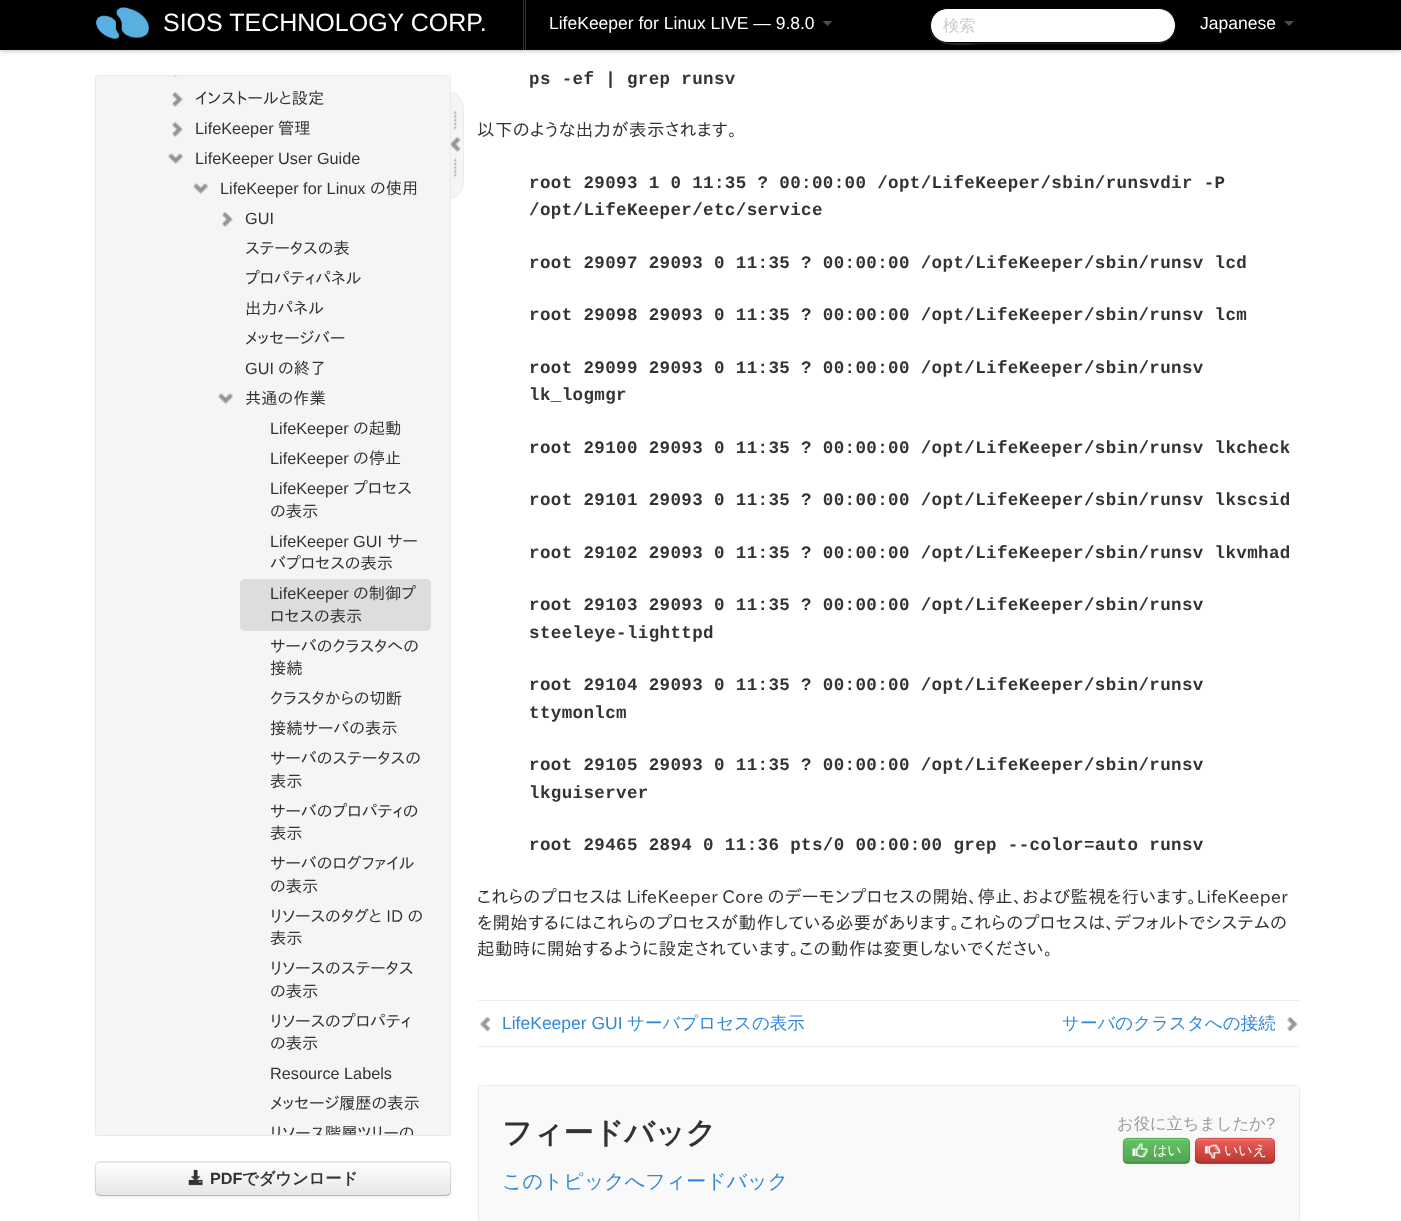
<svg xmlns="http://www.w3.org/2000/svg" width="1401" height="1221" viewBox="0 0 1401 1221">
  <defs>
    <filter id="blur1" x="-50%" y="-200%" width="200%" height="500%"><feGaussianBlur stdDeviation="2"/></filter>
    <clipPath id="clip1"><rect x="96" y="76" width="354" height="1059" rx="4"/></clipPath>
    <clipPath id="clip2"><rect x="451" y="79" width="25" height="137"/></clipPath>
    <filter id="blur2" x="-50%" y="-200%" width="200%" height="500%"><feGaussianBlur stdDeviation="1"/></filter>
    <clipPath id="clip3"><rect x="95" y="1161" width="356" height="35" rx="5"/></clipPath>
    <linearGradient id="g1" gradientUnits="userSpaceOnUse" x1="273" y1="1163" x2="273" y2="1195"><stop offset="0" stop-color="#ffffff"/><stop offset="1" stop-color="#e6e6e6"/></linearGradient>
    <clipPath id="clip4"><rect x="1123" y="1138" width="67" height="26" rx="5"/></clipPath>
    <linearGradient id="g2" gradientUnits="userSpaceOnUse" x1="1156" y1="1139" x2="1156" y2="1163"><stop offset="0" stop-color="#62c462"/><stop offset="1" stop-color="#51a351"/></linearGradient>
    <clipPath id="clip5"><rect x="1195" y="1138" width="80" height="26" rx="5"/></clipPath>
    <linearGradient id="g3" gradientUnits="userSpaceOnUse" x1="1235" y1="1139" x2="1235" y2="1163"><stop offset="0" stop-color="#ee5f5b"/><stop offset="1" stop-color="#bd362f"/></linearGradient>
  </defs>
  <rect width="100%" height="100%" fill="#ffffff"/>
  <rect x="0" y="1" width="1401" height="50" fill="#000000" fill-opacity="0.25" filter="url(#blur1)"/>
  <rect x="0" y="0" width="1401" height="50" fill="#000000"/>
  <image x="96" y="7" width="53" height="32" href="img1.png"/>
  <text x="163" y="31" font-family="Liberation Sans" font-size="25" fill="#ffffff">SIOS TECHNOLOGY CORP.</text>
  <rect x="523" y="0" width="3" height="50" fill="#333333"/>
  <rect x="524" y="0" width="1" height="50" fill="#000000"/>
  <text x="549" y="29" font-family="Liberation Sans" font-size="17.5" fill="#ffffff">LifeKeeper for Linux LIVE — 9.8.0</text>
  <path d="M822.5 21H832.5L827.5 26Z" fill="#4d4d4d"/>
  <path d="M930 26C929 52 971 44 983 44H1158C1167 44 1175 37 1176 29C1174 37 1167 42 1159 42H948C938 42 930 35 930 26Z" fill="#262626"/>
  <rect x="930.5" y="8.5" width="245" height="34" rx="17" fill="#ffffff" stroke="#000000"/>
  <text x="943" y="31" font-family="WenQuanYi Zen Hei" font-size="16.25" font-weight="500" fill="#cccccc">検索</text>
  <text x="1200" y="29" font-family="Liberation Sans" font-size="17.5" fill="#ffffff">Japanese</text>
  <path d="M1284 21H1294L1289 26Z" fill="#4d4d4d"/>
  <rect x="95" y="75" width="356" height="1061" rx="5" fill="#f5f5f5"/>
  <rect x="95.5" y="75.5" width="355" height="1060" fill="none" stroke="#000000" stroke-opacity="0.05"/>
  <image x="173" y="76" width="4" height="1" href="img2.png"/>
  <image x="172" y="91" width="11" height="16" href="img3.png"/>
  <text x="195" y="104" font-family="IPAPGothic" font-size="16.25" fill="#333333">インストールと設定</text>
  <image x="172" y="121" width="11" height="16" href="img4.png"/>
  <text x="195" y="134" font-family="Liberation Sans" font-size="16.25" fill="#333333">LifeKeeper</text>
  <text x="278" y="134" font-family="IPAPGothic" font-size="16.25" fill="#333333">管理</text>
  <image x="168" y="153" width="15" height="12" href="img5.png"/>
  <text x="195" y="164" font-family="Liberation Sans" font-size="16.25" fill="#333333">LifeKeeper User Guide</text>
  <image x="193" y="183" width="15" height="12" href="img5.png"/>
  <text x="220" y="194" font-family="Liberation Sans" font-size="16.25" fill="#333333">LifeKeeper for Linux</text>
  <text x="370" y="194" font-family="IPAPGothic" font-size="16.25" fill="#333333">の使用</text>
  <image x="222" y="211" width="11" height="16" href="img4.png"/>
  <text x="245" y="224" font-family="Liberation Sans" font-size="16.25" fill="#333333">GUI</text>
  <text x="245" y="254" font-family="IPAPGothic" font-size="16.25" fill="#333333">ステータスの表</text>
  <text x="245" y="284" font-family="IPAPGothic" font-size="16.25" fill="#333333">プロパティパネル</text>
  <text x="245" y="314" font-family="IPAPGothic" font-size="16.25" fill="#333333">出力パネル</text>
  <text x="245" y="344" font-family="IPAPGothic" font-size="16.25" fill="#333333">メッセージバー</text>
  <text x="245" y="374" font-family="Liberation Sans" font-size="16.25" fill="#333333">GUI</text>
  <text x="278" y="374" font-family="IPAPGothic" font-size="16.25" fill="#333333">の終了</text>
  <image x="218" y="393" width="15" height="12" href="img6.png"/>
  <text x="245" y="404" font-family="IPAPGothic" font-size="16.25" fill="#333333">共通の作業</text>
  <text x="270" y="434" font-family="Liberation Sans" font-size="16.25" fill="#333333">LifeKeeper</text>
  <text x="353" y="434" font-family="IPAPGothic" font-size="16.25" fill="#333333">の起動</text>
  <text x="270" y="464" font-family="Liberation Sans" font-size="16.25" fill="#333333">LifeKeeper</text>
  <text x="353" y="464" font-family="IPAPGothic" font-size="16.25" fill="#333333">の停止</text>
  <text x="270" y="494" font-family="Liberation Sans" font-size="16.25" fill="#333333">LifeKeeper</text>
  <text x="353" y="494" font-family="IPAPGothic" font-size="16.25" fill="#333333">プロセス</text>
  <text x="270" y="517" font-family="IPAPGothic" font-size="16.25" fill="#333333">の表示</text>
  <text x="270" y="547" font-family="Liberation Sans" font-size="16.25" fill="#333333">LifeKeeper GUI</text>
  <text x="387" y="547" font-family="IPAPGothic" font-size="16.25" fill="#333333">サー</text>
  <text x="270" y="569" font-family="IPAPGothic" font-size="16.25" fill="#333333">バプロセスの表示</text>
  <rect x="240" y="579" width="191" height="52" rx="5" fill="#dddddd"/>
  <text x="270" y="599" font-family="Liberation Sans" font-size="16.25" fill="#333333">LifeKeeper</text>
  <text x="353" y="599" font-family="IPAPGothic" font-size="16.25" fill="#333333">の制御プ</text>
  <text x="270" y="622" font-family="IPAPGothic" font-size="16.25" fill="#333333">ロセスの表示</text>
  <text x="270" y="652" font-family="IPAPGothic" font-size="16.25" fill="#333333">サーバのクラスタへの</text>
  <text x="270" y="674" font-family="IPAPGothic" font-size="16.25" fill="#333333">接続</text>
  <text x="270" y="704" font-family="IPAPGothic" font-size="16.25" fill="#333333">クラスタからの切断</text>
  <text x="270" y="734" font-family="IPAPGothic" font-size="16.25" fill="#333333">接続サーバの表示</text>
  <text x="270" y="764" font-family="IPAPGothic" font-size="16.25" fill="#333333">サーバのステータスの</text>
  <text x="270" y="787" font-family="IPAPGothic" font-size="16.25" fill="#333333">表示</text>
  <text x="270" y="817" font-family="IPAPGothic" font-size="16.25" fill="#333333">サーバのプロパティの</text>
  <text x="270" y="839" font-family="IPAPGothic" font-size="16.25" fill="#333333">表示</text>
  <text x="270" y="869" font-family="IPAPGothic" font-size="16.25" fill="#333333">サーバのログファイル</text>
  <text x="270" y="892" font-family="IPAPGothic" font-size="16.25" fill="#333333">の表示</text>
  <text x="270" y="922" font-family="IPAPGothic" font-size="16.25" fill="#333333">リソースのタグと ID の</text>
  <text x="270" y="944" font-family="IPAPGothic" font-size="16.25" fill="#333333">表示</text>
  <text x="270" y="974" font-family="IPAPGothic" font-size="16.25" fill="#333333">リソースのステータス</text>
  <text x="270" y="997" font-family="IPAPGothic" font-size="16.25" fill="#333333">の表示</text>
  <text x="270" y="1027" font-family="IPAPGothic" font-size="16.25" fill="#333333">リソースのプロパティ</text>
  <text x="270" y="1049" font-family="IPAPGothic" font-size="16.25" fill="#333333">の表示</text>
  <text x="270" y="1079" font-family="Liberation Sans" font-size="16.25" fill="#333333">Resource Labels</text>
  <text x="270" y="1109" font-family="IPAPGothic" font-size="16.25" fill="#333333">メッセージ履歴の表示</text>
  <g clip-path="url(#clip1)">
    <text x="270" y="1139" font-family="IPAPGothic" font-size="16.25" fill="#333333">リソース階層ツリーの</text>
  </g>
  <path d="M451 91H446C456 91 464 99 464 109V182C464 192 456 200 446 200H451Z" fill="#f5f5f5"/>
  <g clip-path="url(#clip2)">
    <rect x="428.5" y="91.5" width="35" height="108" rx="17.5" fill="none" stroke="#ebebeb"/>
  </g>
  <image x="453" y="111" width="4" height="19" href="img7.png"/>
  <image x="451" y="137" width="10" height="15" href="img8.png"/>
  <image x="453" y="158" width="4" height="19" href="img9.png"/>
  <rect x="95" y="1163" width="356" height="35" rx="5" fill="#000000" fill-opacity="0.05" filter="url(#blur2)"/>
  <rect x="95" y="1161" width="356" height="35" rx="5" fill="#f5f5f5"/>
  <g clip-path="url(#clip3)">
    <rect x="95" y="1163" width="356" height="32" fill="url(#g1)"/>
  </g>
  <path d="M449.5 1194.5L446 1195.5H100L97 1194.5" fill="none" stroke="#000000" stroke-opacity="0.25" stroke-width="1.2"/>
  <path d="M97 1194.5C96 1193.5 95.5 1192.5 95.5 1191V1166C95.5 1165 96 1164 97 1163C97.5 1162.5 99 1162 100 1162H446C447.5 1162 448.5 1162.5 449.5 1163C450 1164 450.5 1165 450.5 1166V1191C450.5 1192.5 450 1193.5 449.5 1194.5" fill="none" stroke="#000000" stroke-opacity="0.1" stroke-width="1.2"/>
  <image x="188" y="1169" width="15" height="17" href="img10.png"/>
  <text x="210" y="1184" font-family="Liberation Sans" font-size="16.25" font-weight="bold" fill="#333333">PDF</text>
  <text x="242" y="1184" font-family="WenQuanYi Zen Hei" font-size="16.25" font-weight="bold" fill="#333333">でダウンロード</text>
  <text x="529" y="84" font-family="Liberation Mono" font-size="17.5" font-weight="bold" letter-spacing="0.38" fill="#333333">ps -ef | grep runsv</text>
  <text x="477" y="136" font-family="IPAPGothic" font-size="17.5" letter-spacing="0.38" fill="#333333">以下のような出力が表示されます。</text>
  <text x="529" y="188" font-family="Liberation Mono" font-size="17.5" font-weight="bold" letter-spacing="0.38" fill="#333333">root 29093 1 0 11:35 ? 00:00:00 /opt/LifeKeeper/sbin/runsvdir -P</text>
  <text x="529" y="215" font-family="Liberation Mono" font-size="17.5" font-weight="bold" letter-spacing="0.38" fill="#333333">/opt/LifeKeeper/etc/service</text>
  <text x="529" y="268" font-family="Liberation Mono" font-size="17.5" font-weight="bold" letter-spacing="0.38" fill="#333333">root 29097 29093 0 11:35 ? 00:00:00 /opt/LifeKeeper/sbin/runsv lcd</text>
  <text x="529" y="320" font-family="Liberation Mono" font-size="17.5" font-weight="bold" letter-spacing="0.38" fill="#333333">root 29098 29093 0 11:35 ? 00:00:00 /opt/LifeKeeper/sbin/runsv lcm</text>
  <text x="529" y="373" font-family="Liberation Mono" font-size="17.5" font-weight="bold" letter-spacing="0.38" fill="#333333">root 29099 29093 0 11:35 ? 00:00:00 /opt/LifeKeeper/sbin/runsv</text>
  <text x="529" y="400" font-family="Liberation Mono" font-size="17.5" font-weight="bold" letter-spacing="0.38" fill="#333333">lk_logmgr</text>
  <text x="529" y="453" font-family="Liberation Mono" font-size="17.5" font-weight="bold" letter-spacing="0.38" fill="#333333">root 29100 29093 0 11:35 ? 00:00:00 /opt/LifeKeeper/sbin/runsv lkcheck</text>
  <text x="529" y="505" font-family="Liberation Mono" font-size="17.5" font-weight="bold" letter-spacing="0.38" fill="#333333">root 29101 29093 0 11:35 ? 00:00:00 /opt/LifeKeeper/sbin/runsv lkscsid</text>
  <text x="529" y="558" font-family="Liberation Mono" font-size="17.5" font-weight="bold" letter-spacing="0.38" fill="#333333">root 29102 29093 0 11:35 ? 00:00:00 /opt/LifeKeeper/sbin/runsv lkvmhad</text>
  <text x="529" y="610" font-family="Liberation Mono" font-size="17.5" font-weight="bold" letter-spacing="0.38" fill="#333333">root 29103 29093 0 11:35 ? 00:00:00 /opt/LifeKeeper/sbin/runsv</text>
  <text x="529" y="638" font-family="Liberation Mono" font-size="17.5" font-weight="bold" letter-spacing="0.38" fill="#333333">steeleye-lighttpd</text>
  <text x="529" y="690" font-family="Liberation Mono" font-size="17.5" font-weight="bold" letter-spacing="0.38" fill="#333333">root 29104 29093 0 11:35 ? 00:00:00 /opt/LifeKeeper/sbin/runsv</text>
  <text x="529" y="718" font-family="Liberation Mono" font-size="17.5" font-weight="bold" letter-spacing="0.38" fill="#333333">ttymonlcm</text>
  <text x="529" y="770" font-family="Liberation Mono" font-size="17.5" font-weight="bold" letter-spacing="0.38" fill="#333333">root 29105 29093 0 11:35 ? 00:00:00 /opt/LifeKeeper/sbin/runsv</text>
  <text x="529" y="798" font-family="Liberation Mono" font-size="17.5" font-weight="bold" letter-spacing="0.38" fill="#333333">lkguiserver</text>
  <text x="529" y="850" font-family="Liberation Mono" font-size="17.5" font-weight="bold" letter-spacing="0.38" fill="#333333">root 29465 2894 0 11:36 pts/0 00:00:00 grep --color=auto runsv</text>
  <text x="477" y="903" word-spacing="-1" font-family="IPAPGothic" font-size="17.5" letter-spacing="0.38" fill="#333333">これらのプロセスは LifeKeeper Core のデーモンプロセスの開始、停止、および監視を行います。LifeKeeper</text>
  <text x="477" y="929" font-family="IPAPGothic" font-size="17.5" letter-spacing="0.38" fill="#333333">を開始するにはこれらのプロセスが動作している必要があります。これらのプロセスは、デフォルトでシステムの</text>
  <text x="477" y="955" font-family="IPAPGothic" font-size="17.5" letter-spacing="0.38" fill="#333333">起動時に開始するように設定されています。この動作は変更しないでください。</text>
  <rect x="478" y="1000" width="822" height="1" fill="#eeeeee"/>
  <rect x="478" y="1046" width="822" height="1" fill="#eeeeee"/>
  <image x="480" y="1017" width="11" height="15" href="img11.png"/>
  <text x="502" y="1029" font-family="Liberation Sans" font-size="17.5" fill="#3287db">LifeKeeper GUI</text>
  <text x="627" y="1029" font-family="WenQuanYi Zen Hei" font-size="17.5" font-weight="500" fill="#3287db">サーバプロセスの表示</text>
  <text x="1062" y="1029" font-family="WenQuanYi Zen Hei" font-size="17.5" font-weight="500" fill="#3287db">サーバのクラスタへの接続</text>
  <image x="1287" y="1017" width="11" height="15" href="img12.png"/>
  <rect x="478" y="1085" width="822" height="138" rx="5" fill="#f9f9f9"/>
  <rect x="478.5" y="1085.5" width="821" height="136" fill="none" stroke="#000000" stroke-opacity="0.05"/>
  <text x="502" y="1143" font-family="WenQuanYi Zen Hei" font-size="30" font-weight="bold" fill="#333333">フィードバック</text>
  <text x="1117" y="1129" font-family="WenQuanYi Zen Hei" font-size="16.25" font-weight="500" fill="#999999">お役に立ちましたか</text>
  <text x="1266" y="1129" font-family="Liberation Sans" font-size="16.25" fill="#999999">?</text>
  <rect x="1123" y="1139" width="67" height="26" rx="5" fill="#000000" fill-opacity="0.05" filter="url(#blur2)"/>
  <rect x="1123" y="1138" width="67" height="26" rx="5" fill="#5bb75b"/>
  <g clip-path="url(#clip4)">
    <rect x="1123" y="1139" width="67" height="24" fill="url(#g2)"/>
  </g>
  <path d="M1128 1140H1185C1187 1140 1189 1142 1189 1144C1189 1137 1181 1139 1176 1139H1138C1132 1139 1124 1137 1124 1144C1124 1142 1125 1140 1128 1140Z" fill="#81cf81"/>
  <path d="M1188 1162C1187.5 1162.5 1186 1163 1185 1163H1127.5C1126.5 1163 1125 1162.5 1124.5 1162" fill="none" stroke="#000000" stroke-opacity="0.25" stroke-width="1.2"/>
  <path d="M1124.5 1162C1122 1159 1123 1154 1123 1150.5C1123 1137 1122.5 1138 1137 1138H1175.5C1190 1138 1189.5 1137 1189.5 1150.5C1189.5 1154 1190.5 1159 1188 1162" fill="none" stroke="#000000" stroke-opacity="0.1" stroke-width="1.2"/>
  <image x="1132" y="1143" width="16" height="16" href="img13.png"/>
  <text x="1153" y="1155" font-family="WenQuanYi Zen Hei" font-size="14" font-weight="500" fill="#ffffff">はい</text>
  <rect x="1195" y="1139" width="80" height="26" rx="5" fill="#000000" fill-opacity="0.05" filter="url(#blur2)"/>
  <rect x="1195" y="1138" width="80" height="26" rx="5" fill="#da4f49"/>
  <g clip-path="url(#clip5)">
    <rect x="1195" y="1139" width="80" height="24" fill="url(#g3)"/>
  </g>
  <path d="M1200 1140H1270C1272 1140 1274 1142 1274 1144C1274 1136 1263 1139 1258 1139H1212C1207 1139 1196 1136 1196 1144C1196 1142 1198 1140 1200 1140Z" fill="#ffffff" fill-opacity="0.2"/>
  <path d="M1273 1162L1270.5 1163H1199.5L1197 1162" fill="none" stroke="#000000" stroke-opacity="0.25" stroke-width="1.2"/>
  <path d="M1197 1162C1194.5 1159 1195.5 1154 1195.5 1150.5C1195.5 1136 1195.5 1138 1211.5 1138H1258.5C1276 1138 1274.5 1136.5 1274.5 1153.5C1274.5 1156 1275 1159.5 1273 1162" fill="none" stroke="#000000" stroke-opacity="0.1" stroke-width="1.2"/>
  <image x="1204" y="1144" width="17" height="16" href="img14.png"/>
  <text x="1224" y="1155" font-family="WenQuanYi Zen Hei" font-size="14" font-weight="500" fill="#ffffff">いいえ</text>
  <text x="502" y="1188" font-family="WenQuanYi Zen Hei" font-size="20" font-weight="500" fill="#3287db">このトピックへフィードバック</text>
</svg>
